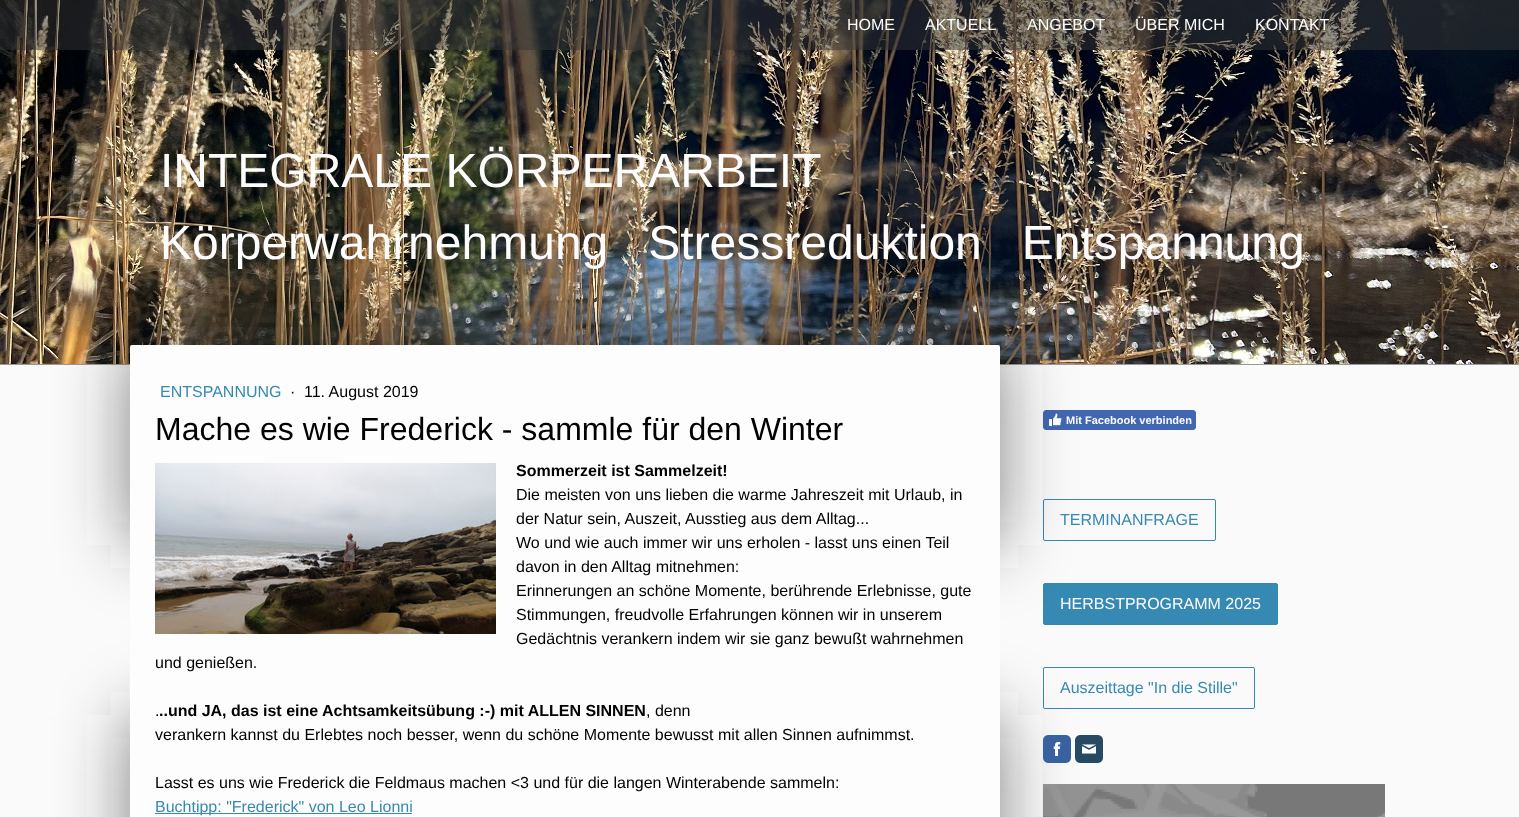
<svg xmlns="http://www.w3.org/2000/svg" width="1519" height="817" viewBox="0 0 1519 817">
  <defs>
    <filter id="blur1" x="-50%" y="-200%" width="200%" height="500%"><feGaussianBlur stdDeviation="34"/></filter>
  </defs>
  <rect width="100%" height="100%" fill="#fafafa"/>
  <image x="0" y="0" width="1519" height="364" href="img1.png"/>
  <rect x="0" y="0" width="1519" height="50" fill="#333333" fill-opacity="0.5"/>
  <text x="847" y="30" font-family="Liberation Sans" font-size="16" fill="#fdfdfd">HOME</text>
  <text x="925" y="30" font-family="Liberation Sans" font-size="16" fill="#fdfdfd">AKTUELL</text>
  <text x="1027" y="30" font-family="Liberation Sans" font-size="16" fill="#fdfdfd">ANGEBOT</text>
  <text x="1135" y="30" font-family="Liberation Sans" font-size="16" fill="#fdfdfd">ÜBER MICH</text>
  <text x="1255" y="30" font-family="Liberation Sans" font-size="16" fill="#fdfdfd">KONTAKT</text>
  <text x="160" y="187" font-family="Liberation Sans" font-size="48" fill="#fdfdfd">INTEGRALE KÖRPERARBEIT</text>
  <text x="160" y="259" font-family="Liberation Sans" font-size="48" fill="#fdfdfd" xml:space="preserve">Körperwahrnehmung   Stressreduktion   Entspannung</text>
  <rect x="0" y="364" width="1519" height="1" fill="#999999"/>
  <rect x="1043.5" y="410.5" width="152" height="19" rx="2.5" fill="#4267b2" stroke="#4267b2"/>
  <image x="1049" y="413" width="13" height="13" href="img3.png"/>
  <rect x="1043.5" y="499.5" width="172" height="41" rx="1.5" fill="none" stroke="#3689b2"/>
  <rect x="1043.5" y="583.5" width="234" height="41" rx="1.5" fill="#3689b2" stroke="#3689b2"/>
  <rect x="129" y="345" width="871" height="200" fill="#333333" fill-opacity="0.6" filter="url(#blur1)"/>
  <rect x="1043.5" y="667.5" width="211" height="41" rx="1.5" fill="none" stroke="#3689b2"/>
  <image x="1043" y="784" width="342" height="33" href="img8.png"/>
  <rect x="129" y="715" width="871" height="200" fill="#333333" fill-opacity="0.6" filter="url(#blur1)"/>
  <rect x="130" y="345" width="870" height="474" rx="2" fill="#fdfdfd"/>
  <text x="160" y="397" font-family="Liberation Sans" font-size="16" fill="#3689b2">ENTSPANNUNG</text>
  <text x="290" y="397" font-family="Liberation Sans" font-size="16" fill="#000000">·</text>
  <text x="304" y="397" font-family="Liberation Sans" font-size="16" fill="#000000">11. August 2019</text>
  <text x="155" y="440" font-family="Liberation Sans" font-size="32" fill="#000000">Mache es wie Frederick - sammle für den Winter</text>
  <image x="155" y="463" width="341" height="171" href="img2.png"/>
  <text x="516" y="476" font-family="Liberation Sans" font-size="16" font-weight="bold" fill="#000000">Sommerzeit ist Sammelzeit!</text>
  <text x="516" y="500" font-family="Liberation Sans" font-size="16" fill="#000000">Die meisten von uns lieben die warme Jahreszeit mit Urlaub, in</text>
  <text x="516" y="524" font-family="Liberation Sans" font-size="16" fill="#000000">der Natur sein, Auszeit, Ausstieg aus dem Alltag...</text>
  <text x="516" y="548" font-family="Liberation Sans" font-size="16" fill="#000000">Wo und wie auch immer wir uns erholen - lasst uns einen Teil</text>
  <text x="516" y="572" font-family="Liberation Sans" font-size="16" fill="#000000">davon in den Alltag mitnehmen:</text>
  <text x="516" y="596" font-family="Liberation Sans" font-size="16" fill="#000000">Erinnerungen an schöne Momente, berührende Erlebnisse, gute</text>
  <text x="516" y="620" font-family="Liberation Sans" font-size="16" fill="#000000">Stimmungen, freudvolle Erfahrungen können wir in unserem</text>
  <text x="516" y="644" font-family="Liberation Sans" font-size="16" fill="#000000">Gedächtnis verankern indem wir sie ganz bewußt wahrnehmen</text>
  <text x="155" y="668" font-family="Liberation Sans" font-size="16" fill="#000000">und genießen.</text>
  <text x="155" y="716" font-family="Liberation Sans" font-size="16" fill="#000000">.</text>
  <text x="159" y="716" font-family="Liberation Sans" font-size="16" font-weight="bold" fill="#000000">..und JA, das ist eine Achtsamkeitsübung :-) mit ALLEN SINNEN</text>
  <text x="646" y="716" font-family="Liberation Sans" font-size="16" fill="#000000">, denn</text>
  <text x="155" y="740" font-family="Liberation Sans" font-size="16" fill="#000000">verankern kannst du Erlebtes noch besser, wenn du schöne Momente bewusst mit allen Sinnen aufnimmst.</text>
  <text x="155" y="788" font-family="Liberation Sans" font-size="16" fill="#000000">Lasst es uns wie Frederick die Feldmaus machen &lt;3 und für die langen Winterabende sammeln:</text>
  <rect x="155" y="813" width="257" height="1" fill="#3689b2"/>
  <text x="155" y="812" font-family="Liberation Sans" font-size="16" fill="#3689b2">Buchtipp: "Frederick" von Leo Lionni</text>
  <text x="1066" y="424" font-family="Liberation Sans" font-size="11" font-weight="bold" fill="#fdfdfd">Mit Facebook verbinden</text>
  <text x="1060" y="525" font-family="Liberation Sans" font-size="16" fill="#3689b2">TERMINANFRAGE</text>
  <text x="1060" y="609" font-family="Liberation Sans" font-size="16" fill="#fdfdfd">HERBSTPROGRAMM 2025</text>
  <text x="1060" y="693" font-family="Liberation Sans" font-size="16" fill="#3689b2">Auszeittage "In die Stille"</text>
  <image x="1043" y="735" width="28" height="28" href="img4.png"/>
  <image x="1053" y="742" width="8" height="14" href="img5.png"/>
  <image x="1075" y="735" width="28" height="28" href="img6.png"/>
  <image x="1082" y="744" width="14" height="10" href="img7.png"/>
</svg>
